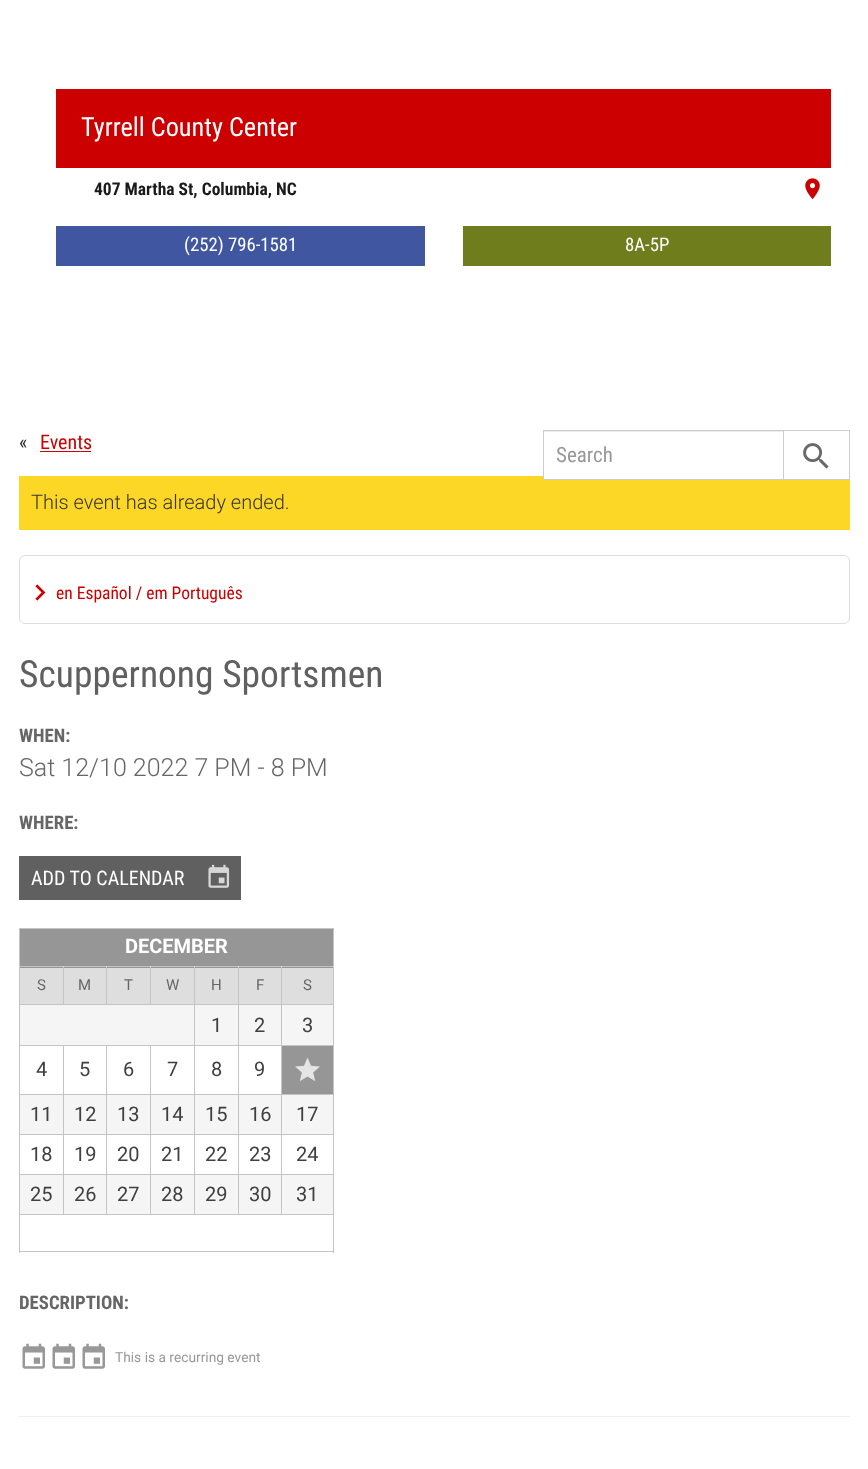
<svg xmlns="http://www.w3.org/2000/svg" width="868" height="1469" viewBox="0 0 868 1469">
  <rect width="100%" height="100%" fill="#ffffff"/>
  <rect x="56" y="89" width="775" height="79" fill="#cc0000"/>
  <text x="81" y="136" font-family="Roboto Condensed" font-size="26.25" fill="#ffffff">Tyrrell County Center</text>
  <text x="94" y="195" font-family="Roboto Condensed" font-size="17.5" font-weight="bold" fill="#1a1a1a">407 Martha St, Columbia, NC</text>
  <image x="805" y="178" width="15" height="21" href="img1.png"/>
  <rect x="56" y="226" width="369" height="40" fill="#4156a1"/>
  <text x="184" y="251" font-family="Roboto Condensed" font-size="18.75" fill="#ffffff">(252) 796-1581</text>
  <rect x="463" y="226" width="368" height="40" fill="#6f7d1c"/>
  <text x="625" y="251" font-family="Roboto Condensed" font-size="18.75" fill="#ffffff">8A-5P</text>
  <text x="19" y="449" font-family="Roboto Condensed" font-size="20" fill="#333333">«</text>
  <text x="40" y="449" font-family="Roboto Condensed" font-size="20" fill="#cc0000">Events</text>
  <rect x="40" y="451" width="51" height="1" fill="#cc0000"/>
  <rect x="19" y="476" width="831" height="54" fill="#fdd726"/>
  <text x="31" y="509" font-family="Roboto" font-size="20" font-weight="300" fill="#333333">This event has already ended.</text>
  <rect x="19.5" y="555.5" width="830" height="68" rx="5.5" fill="none" stroke="#dddddd"/>
  <image x="35" y="584" width="11" height="17" href="img2.png"/>
  <text x="56" y="599" font-family="Roboto Condensed" font-size="17.5" fill="#cc0000">en Español / em Português</text>
  <text x="19" y="687" font-family="Roboto Condensed" font-size="37.5" fill="#606060">Scuppernong Sportsmen</text>
  <text x="19" y="742" font-family="Roboto Condensed" font-size="18.75" font-weight="bold" fill="#666666">WHEN:</text>
  <text x="19" y="776" font-family="Roboto" font-size="25" font-weight="300" fill="#666666">Sat 12/10 2022 7 PM - 8 PM</text>
  <text x="19" y="829" font-family="Roboto Condensed" font-size="18.75" font-weight="bold" fill="#666666">WHERE:</text>
  <rect x="19" y="856" width="222" height="44" fill="#606060"/>
  <text x="31" y="885" font-family="Roboto Condensed" font-size="20" fill="#ffffff">ADD TO CALENDAR</text>
  <image x="208" y="864" width="22" height="24" href="img3.png"/>
  <rect x="19" y="928" width="315" height="1" fill="#c4c4c4"/>
  <rect x="333" y="928" width="1" height="325" fill="#c4c4c4"/>
  <rect x="333" y="966" width="1" height="1" fill="#dadada"/>
  <rect x="19" y="1251" width="315" height="1" fill="#c4c4c4"/>
  <rect x="19" y="928" width="1" height="325" fill="#c4c4c4"/>
  <rect x="19" y="966" width="1" height="1" fill="#dadada"/>
  <rect x="20" y="929" width="313" height="39" fill="#969696"/>
  <rect x="20" y="966" width="313" height="1" fill="#c2c2c2"/>
  <text x="125" y="953" font-family="Roboto" font-size="20" font-weight="bold" fill="#ffffff">DECEMBER</text>
  <rect x="20" y="968" width="43" height="36" fill="#dedede"/>
  <rect x="281" y="1045" width="53" height="1" fill="#c4c4c4"/>
  <rect x="281" y="1094" width="53" height="1" fill="#c4c4c4"/>
  <rect x="281" y="1134" width="53" height="1" fill="#c4c4c4"/>
  <rect x="281" y="1174" width="53" height="1" fill="#c4c4c4"/>
  <rect x="19" y="1214" width="315" height="1" fill="#c4c4c4"/>
  <rect x="281" y="1174" width="1" height="41" fill="#c4c4c4"/>
  <rect x="238" y="1174" width="45" height="1" fill="#c4c4c4"/>
  <rect x="281" y="1134" width="1" height="41" fill="#c4c4c4"/>
  <rect x="238" y="1134" width="45" height="1" fill="#c4c4c4"/>
  <rect x="281" y="1094" width="1" height="41" fill="#c4c4c4"/>
  <rect x="238" y="1094" width="45" height="1" fill="#c4c4c4"/>
  <rect x="281" y="1045" width="1" height="50" fill="#c4c4c4"/>
  <rect x="238" y="1045" width="45" height="1" fill="#c4c4c4"/>
  <rect x="281" y="1004" width="1" height="42" fill="#c4c4c4"/>
  <rect x="281" y="1004" width="53" height="1" fill="#c4c4c4"/>
  <rect x="281" y="966" width="1" height="39" fill="#c5c5c5"/>
  <rect x="238" y="1174" width="1" height="41" fill="#c4c4c4"/>
  <rect x="194" y="1174" width="45" height="1" fill="#c4c4c4"/>
  <rect x="238" y="1134" width="1" height="41" fill="#c4c4c4"/>
  <rect x="194" y="1134" width="45" height="1" fill="#c4c4c4"/>
  <rect x="238" y="1094" width="1" height="41" fill="#c4c4c4"/>
  <rect x="194" y="1094" width="45" height="1" fill="#c4c4c4"/>
  <rect x="238" y="1045" width="1" height="50" fill="#c4c4c4"/>
  <rect x="194" y="1045" width="45" height="1" fill="#c4c4c4"/>
  <rect x="238" y="1004" width="1" height="42" fill="#c4c4c4"/>
  <rect x="238" y="1004" width="45" height="1" fill="#c4c4c4"/>
  <rect x="238" y="966" width="1" height="39" fill="#c5c5c5"/>
  <rect x="194" y="1174" width="1" height="41" fill="#c4c4c4"/>
  <rect x="150" y="1174" width="45" height="1" fill="#c4c4c4"/>
  <rect x="194" y="1134" width="1" height="41" fill="#c4c4c4"/>
  <rect x="150" y="1134" width="45" height="1" fill="#c4c4c4"/>
  <rect x="194" y="1094" width="1" height="41" fill="#c4c4c4"/>
  <rect x="150" y="1094" width="45" height="1" fill="#c4c4c4"/>
  <rect x="194" y="1045" width="1" height="50" fill="#c4c4c4"/>
  <rect x="150" y="1045" width="45" height="1" fill="#c4c4c4"/>
  <rect x="194" y="1004" width="1" height="42" fill="#c4c4c4"/>
  <rect x="194" y="1004" width="45" height="1" fill="#c4c4c4"/>
  <rect x="194" y="966" width="1" height="39" fill="#c5c5c5"/>
  <rect x="150" y="1004" width="45" height="1" fill="#c4c4c4"/>
  <rect x="150" y="966" width="1" height="39" fill="#c5c5c5"/>
  <rect x="106" y="1004" width="45" height="1" fill="#c4c4c4"/>
  <rect x="106" y="966" width="1" height="39" fill="#c5c5c5"/>
  <rect x="63" y="1004" width="45" height="1" fill="#c4c4c4"/>
  <rect x="63" y="966" width="1" height="39" fill="#c5c5c5"/>
  <rect x="19" y="1004" width="45" height="1" fill="#c4c4c4"/>
  <text x="37" y="990" font-family="Roboto" font-size="15" fill="#666666">S</text>
  <rect x="64" y="968" width="42" height="36" fill="#dedede"/>
  <rect x="63" y="966" width="1" height="1" fill="#dbdbdb"/>
  <text x="78" y="990" font-family="Roboto" font-size="15" fill="#666666">M</text>
  <rect x="107" y="968" width="43" height="36" fill="#dedede"/>
  <rect x="106" y="966" width="1" height="1" fill="#dbdbdb"/>
  <text x="124" y="990" font-family="Roboto" font-size="15" fill="#666666">T</text>
  <rect x="151" y="968" width="43" height="36" fill="#dedede"/>
  <rect x="150" y="966" width="1" height="1" fill="#dbdbdb"/>
  <text x="166" y="990" font-family="Roboto" font-size="15" fill="#666666">W</text>
  <rect x="195" y="968" width="43" height="36" fill="#dedede"/>
  <rect x="194" y="966" width="1" height="1" fill="#dbdbdb"/>
  <text x="211" y="990" font-family="Roboto" font-size="15" fill="#666666">H</text>
  <rect x="239" y="968" width="42" height="36" fill="#dedede"/>
  <rect x="238" y="966" width="1" height="1" fill="#dbdbdb"/>
  <text x="256" y="990" font-family="Roboto" font-size="15" fill="#666666">F</text>
  <rect x="282" y="968" width="51" height="36" fill="#dedede"/>
  <rect x="281" y="966" width="1" height="1" fill="#dbdbdb"/>
  <text x="303" y="990" font-family="Roboto" font-size="15" fill="#666666">S</text>
  <rect x="20" y="1005" width="174" height="40" fill="#f5f5f5"/>
  <rect x="195" y="1005" width="43" height="40" fill="#f5f5f5"/>
  <text x="211" y="1032" font-family="Roboto" font-size="20" fill="#404040">1</text>
  <rect x="239" y="1005" width="42" height="40" fill="#f5f5f5"/>
  <text x="254" y="1032" font-family="Roboto" font-size="20" fill="#404040">2</text>
  <rect x="282" y="1005" width="51" height="40" fill="#f5f5f5"/>
  <text x="302" y="1032" font-family="Roboto" font-size="20" fill="#404040">3</text>
  <rect x="150" y="1174" width="1" height="41" fill="#c4c4c4"/>
  <rect x="106" y="1174" width="45" height="1" fill="#c4c4c4"/>
  <rect x="150" y="1134" width="1" height="41" fill="#c4c4c4"/>
  <rect x="106" y="1134" width="45" height="1" fill="#c4c4c4"/>
  <rect x="150" y="1094" width="1" height="41" fill="#c4c4c4"/>
  <rect x="106" y="1094" width="45" height="1" fill="#c4c4c4"/>
  <rect x="150" y="1045" width="1" height="50" fill="#c4c4c4"/>
  <rect x="106" y="1045" width="45" height="1" fill="#c4c4c4"/>
  <rect x="106" y="1174" width="1" height="41" fill="#c4c4c4"/>
  <rect x="63" y="1174" width="45" height="1" fill="#c4c4c4"/>
  <rect x="106" y="1134" width="1" height="41" fill="#c4c4c4"/>
  <rect x="63" y="1134" width="45" height="1" fill="#c4c4c4"/>
  <rect x="106" y="1094" width="1" height="41" fill="#c4c4c4"/>
  <rect x="63" y="1094" width="45" height="1" fill="#c4c4c4"/>
  <rect x="106" y="1045" width="1" height="50" fill="#c4c4c4"/>
  <rect x="63" y="1045" width="45" height="1" fill="#c4c4c4"/>
  <rect x="63" y="1174" width="1" height="41" fill="#c4c4c4"/>
  <rect x="19" y="1174" width="45" height="1" fill="#c4c4c4"/>
  <rect x="63" y="1134" width="1" height="41" fill="#c4c4c4"/>
  <rect x="19" y="1134" width="45" height="1" fill="#c4c4c4"/>
  <rect x="63" y="1094" width="1" height="41" fill="#c4c4c4"/>
  <rect x="19" y="1094" width="45" height="1" fill="#c4c4c4"/>
  <rect x="63" y="1045" width="1" height="50" fill="#c4c4c4"/>
  <rect x="19" y="1045" width="45" height="1" fill="#c4c4c4"/>
  <text x="36" y="1076" font-family="Roboto" font-size="20" fill="#404040">4</text>
  <text x="79" y="1076" font-family="Roboto" font-size="20" fill="#404040">5</text>
  <text x="123" y="1076" font-family="Roboto" font-size="20" fill="#404040">6</text>
  <text x="167" y="1076" font-family="Roboto" font-size="20" fill="#404040">7</text>
  <text x="211" y="1076" font-family="Roboto" font-size="20" fill="#404040">8</text>
  <text x="254" y="1076" font-family="Roboto" font-size="20" fill="#404040">9</text>
  <rect x="282" y="1046" width="51" height="48" fill="#969696"/>
  <image x="295" y="1057" width="25" height="24" href="img4.png"/>
  <rect x="20" y="1095" width="43" height="39" fill="#f5f5f5"/>
  <text x="30" y="1121" font-family="Roboto" font-size="20" fill="#404040">11</text>
  <rect x="64" y="1095" width="42" height="39" fill="#f5f5f5"/>
  <text x="74" y="1121" font-family="Roboto" font-size="20" fill="#404040">12</text>
  <rect x="107" y="1095" width="43" height="39" fill="#f5f5f5"/>
  <text x="117" y="1121" font-family="Roboto" font-size="20" fill="#404040">13</text>
  <rect x="151" y="1095" width="43" height="39" fill="#f5f5f5"/>
  <text x="161" y="1121" font-family="Roboto" font-size="20" fill="#404040">14</text>
  <rect x="195" y="1095" width="43" height="39" fill="#f5f5f5"/>
  <text x="205" y="1121" font-family="Roboto" font-size="20" fill="#404040">15</text>
  <rect x="239" y="1095" width="42" height="39" fill="#f5f5f5"/>
  <text x="249" y="1121" font-family="Roboto" font-size="20" fill="#404040">16</text>
  <rect x="282" y="1095" width="51" height="39" fill="#f5f5f5"/>
  <text x="296" y="1121" font-family="Roboto" font-size="20" fill="#404040">17</text>
  <text x="30" y="1161" font-family="Roboto" font-size="20" fill="#404040">18</text>
  <text x="74" y="1161" font-family="Roboto" font-size="20" fill="#404040">19</text>
  <text x="117" y="1161" font-family="Roboto" font-size="20" fill="#404040">20</text>
  <text x="161" y="1161" font-family="Roboto" font-size="20" fill="#404040">21</text>
  <text x="205" y="1161" font-family="Roboto" font-size="20" fill="#404040">22</text>
  <text x="249" y="1161" font-family="Roboto" font-size="20" fill="#404040">23</text>
  <text x="296" y="1161" font-family="Roboto" font-size="20" fill="#404040">24</text>
  <rect x="20" y="1175" width="43" height="39" fill="#f5f5f5"/>
  <text x="30" y="1201" font-family="Roboto" font-size="20" fill="#404040">25</text>
  <rect x="64" y="1175" width="42" height="39" fill="#f5f5f5"/>
  <text x="74" y="1201" font-family="Roboto" font-size="20" fill="#404040">26</text>
  <rect x="107" y="1175" width="43" height="39" fill="#f5f5f5"/>
  <text x="117" y="1201" font-family="Roboto" font-size="20" fill="#404040">27</text>
  <rect x="151" y="1175" width="43" height="39" fill="#f5f5f5"/>
  <text x="161" y="1201" font-family="Roboto" font-size="20" fill="#404040">28</text>
  <rect x="195" y="1175" width="43" height="39" fill="#f5f5f5"/>
  <text x="205" y="1201" font-family="Roboto" font-size="20" fill="#404040">29</text>
  <rect x="239" y="1175" width="42" height="39" fill="#f5f5f5"/>
  <text x="249" y="1201" font-family="Roboto" font-size="20" fill="#404040">30</text>
  <rect x="282" y="1175" width="51" height="39" fill="#f5f5f5"/>
  <text x="296" y="1201" font-family="Roboto" font-size="20" fill="#404040">31</text>
  <text x="19" y="1309" font-family="Roboto Condensed" font-size="18.75" font-weight="bold" fill="#666666">DESCRIPTION:</text>
  <image x="22" y="1343" width="23" height="26" href="img5.png"/>
  <image x="52" y="1343" width="23" height="26" href="img5.png"/>
  <image x="82" y="1343" width="23" height="26" href="img5.png"/>
  <text x="115" y="1362" font-family="Roboto" font-size="13.75" fill="#989898">This is a recurring event</text>
  <rect x="19" y="1416" width="831" height="1" fill="#eeeeee"/>
  <rect x="544" y="476" width="239" height="3" fill="#ffffff"/>
  <rect x="544" y="431" width="239" height="1" fill="#ececec"/>
  <rect x="543.5" y="430.5" width="240" height="49" fill="none" stroke="#cccccc"/>
  <text x="556" y="462" font-family="Roboto Condensed" font-size="21" fill="#989898">Search</text>
  <rect x="784" y="476" width="65" height="3" fill="#ffffff"/>
  <rect x="783.5" y="430.5" width="66" height="49" fill="none" stroke="#cccccc"/>
  <image x="803" y="443" width="26" height="26" href="img6.png"/>
</svg>
